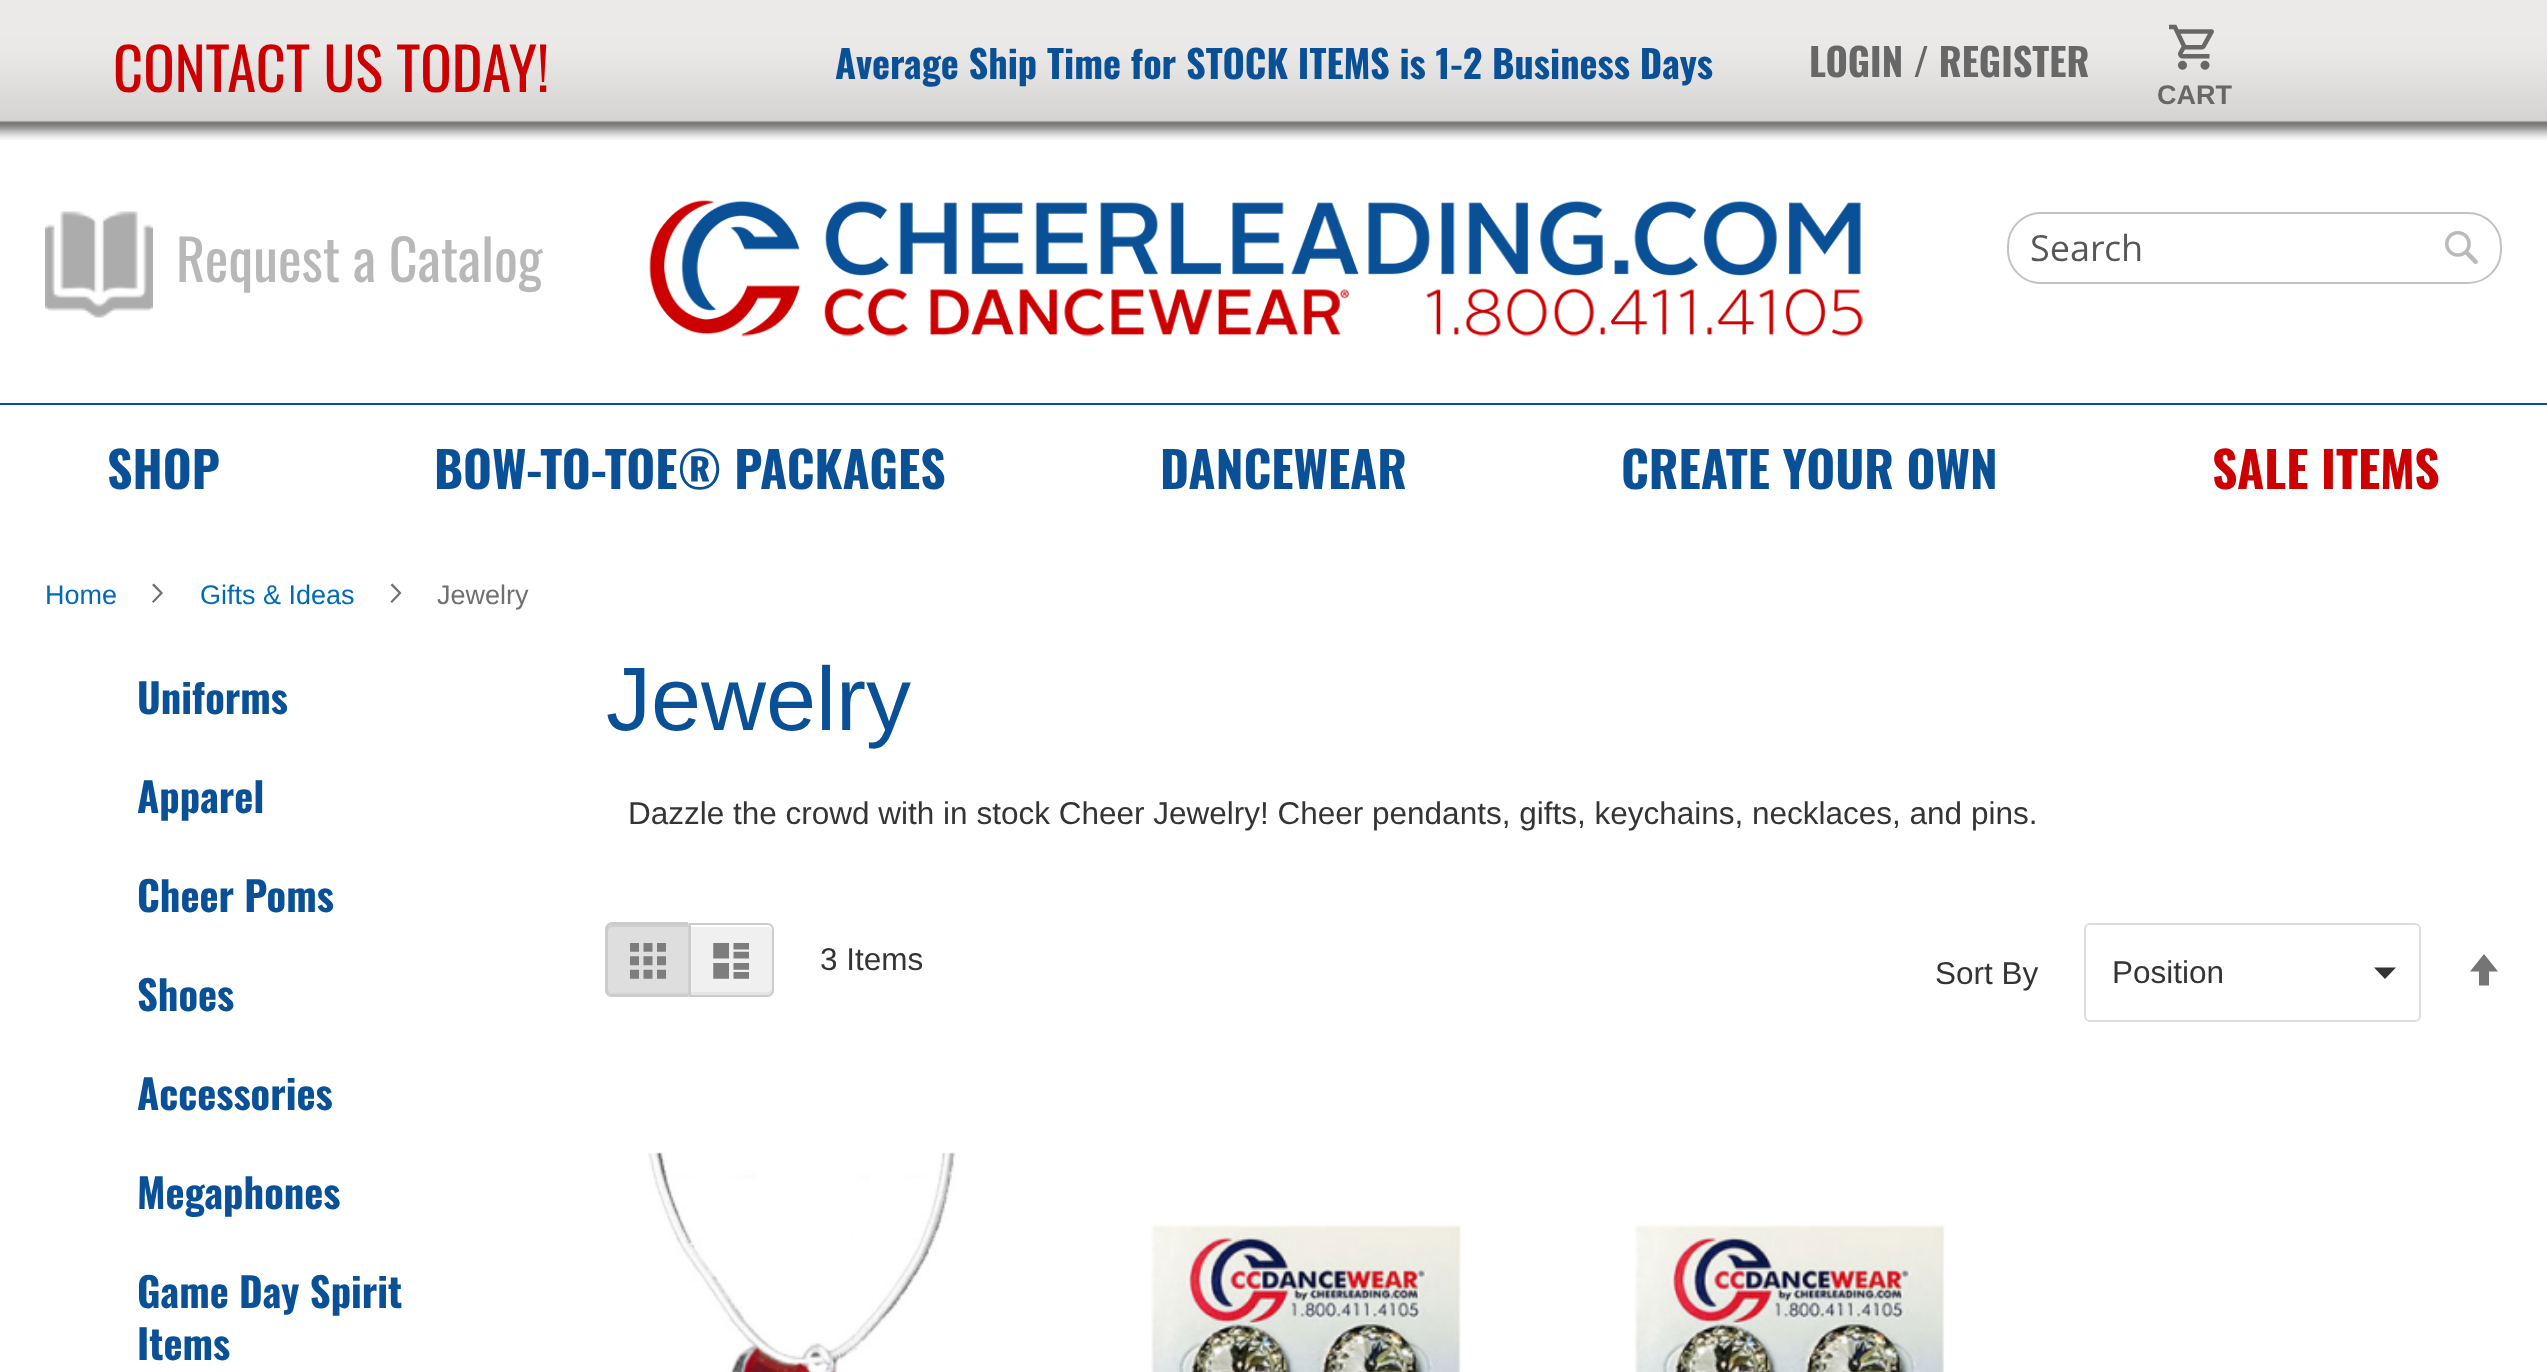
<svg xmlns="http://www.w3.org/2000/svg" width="2547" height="1372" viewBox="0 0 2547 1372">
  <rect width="100%" height="100%" fill="#ffffff"/>
  <image x="0" y="0" width="2547" height="140" href="img1.png"/>
  <text x="113" y="92" font-family="Oswald" font-size="58.5" fill="#cc0000">CONTACT US TODAY!</text>
  <text x="1809" y="77" font-family="Oswald" font-size="38.25" font-weight="bold" fill="#676767">LOGIN / REGISTER</text>
  <image x="2169" y="24" width="45" height="46" href="img2.png"/>
  <text x="2157" y="104" font-family="Liberation Sans" font-size="27" font-weight="bold" fill="#676767">CART</text>
  <text x="835" y="79" font-family="Oswald" font-size="38.25" font-weight="bold" fill="#0a5096">Average Ship Time for STOCK ITEMS is 1-2 Business Days</text>
  <image x="45" y="211" width="108" height="107" href="img3.png"/>
  <text x="176" y="282" font-family="Oswald" font-size="56.25" fill="#b8b8b8">Request a Catalog</text>
  <image x="649" y="200" width="1214" height="137" href="img4.png"/>
  <rect x="2008" y="213" width="493" height="70" rx="33" fill="none" stroke="#c2c2c2" stroke-width="2"/>
  <text x="2030" y="261" font-family="Open Sans" font-size="36" fill="#575757">Search</text>
  <image x="2445" y="231" width="33" height="33" href="img5.png"/>
  <rect x="0" y="403" width="2547" height="2" fill="#0a5096"/>
  <text x="107" y="489" font-family="Oswald" font-size="49.5" font-weight="bold" fill="#0a5096">SHOP</text>
  <text x="434" y="489" font-family="Oswald" font-size="49.5" font-weight="bold" fill="#0a5096">BOW-TO-TOE® PACKAGES</text>
  <text x="1160" y="489" font-family="Oswald" font-size="49.5" font-weight="bold" fill="#0a5096">DANCEWEAR</text>
  <text x="1621" y="489" font-family="Oswald" font-size="49.5" font-weight="bold" fill="#0a5096">CREATE YOUR OWN</text>
  <text x="2212" y="489" font-family="Oswald" font-size="49.5" font-weight="bold" fill="#cc0000">SALE ITEMS</text>
  <text x="45" y="604" font-family="Liberation Sans" font-size="27" fill="#006bb4">Home</text>
  <path d="M163 593L154 583.5L152 585L160 593L152 601.5L153.5 603Z" fill="#707070"/>
  <text x="200" y="604" font-family="Liberation Sans" font-size="27" fill="#006bb4">Gifts &amp; Ideas</text>
  <path d="M401.5 593L392.5 583.5L390.5 585L398.5 593L390.5 601.5L392 603Z" fill="#707070"/>
  <text x="437" y="604" font-family="Liberation Sans" font-size="27" fill="#707070">Jewelry</text>
  <text x="137" y="714" font-family="Oswald" font-size="40.5" font-weight="bold" fill="#0a5096">Uniforms</text>
  <text x="137" y="813" font-family="Oswald" font-size="40.5" font-weight="bold" fill="#0a5096">Apparel</text>
  <text x="137" y="912" font-family="Oswald" font-size="40.5" font-weight="bold" fill="#0a5096">Cheer Poms</text>
  <text x="137" y="1011" font-family="Oswald" font-size="40.5" font-weight="bold" fill="#0a5096">Shoes</text>
  <text x="137" y="1110" font-family="Oswald" font-size="40.5" font-weight="bold" fill="#0a5096">Accessories</text>
  <text x="137" y="1209" font-family="Oswald" font-size="40.5" font-weight="bold" fill="#0a5096">Megaphones</text>
  <text x="137" y="1308" font-family="Oswald" font-size="40.5" font-weight="bold" fill="#0a5096">Game Day Spirit</text>
  <text x="137" y="1360" font-family="Oswald" font-size="40.5" font-weight="bold" fill="#0a5096">Items</text>
  <text x="606" y="730" font-family="Liberation Sans" font-size="90" fill="#0a5096">Jewelry</text>
  <text x="628" y="824" font-family="Liberation Sans" font-size="31.5" fill="#343434">Dazzle the crowd with in stock Cheer Jewelry! Cheer pendants, gifts, keychains, necklaces, and pins.</text>
  <path d="M612 923H689V997H612C608 997 605 994 605 990V930C605 926 608 923 612 923Z" fill="#dedede"/>
  <path d="M608 988V990C608 993 610 995 613 995H689V925H688V992H612C610 992 608 990 608 988Z" fill="#d9d9d9"/>
  <path d="M612 927H688V995H689V925H613C610 925 608 927 608 930V932C608 929 610 927 612 927Z" fill="#cccccc" fill-opacity="0.8"/>
  <path d="M612 922H688V997H612C608 997 605 994 605 990V929C605 926 608 922 612 922ZM612 925H688V994H612C610 994 608 992 608 990V929C608 927 610 925 612 925Z" fill="#cccccc" fill-rule="evenodd"/>
  <image x="630" y="943" width="36" height="36" href="img6.png"/>
  <path d="M689 923H767C771 923 774 926 774 930V990C774 994 771 997 767 997H689Z" fill="#f0f0f0"/>
  <path d="M691 992V995H767C770 995 772 993 772 990V988C772 990 770 992 767 992Z" fill="#e5e5e5"/>
  <path d="M691 927H767C770 927 772 929 772 932V930C772 927 770 925 767 925H691Z" fill="#ffffff"/>
  <path d="M690 924H767C770.5 924 773 926.5 773 930V990C773 993.5 770.5 996 767 996H690Z" fill="none" stroke="#cccccc" stroke-width="2"/>
  <image x="713" y="943" width="36" height="36" href="img7.png"/>
  <text x="820" y="970" font-family="Liberation Sans" font-size="31.5" fill="#343434">3 Items</text>
  <text x="1935" y="984" font-family="Liberation Sans" font-size="31.5" fill="#343434">Sort By</text>
  <rect x="2085" y="924" width="335" height="97" rx="5" fill="none" stroke="#dddddd" stroke-width="2"/>
  <text x="2112" y="983" font-family="Liberation Sans" font-size="31.5" fill="#343434">Position</text>
  <path d="M2374 967.5H2396L2385 979Z" fill="#333333"/>
  <path d="M2484 954L2470 971.5H2479V985.5H2489V971.5H2498Z" fill="#757575"/>
  <image x="648" y="1152" width="308" height="220" href="img8.png"/>
  <image x="1151" y="1223" width="311" height="149" href="img9.png"/>
  <image x="1634" y="1223" width="312" height="149" href="img10.png"/>
</svg>
